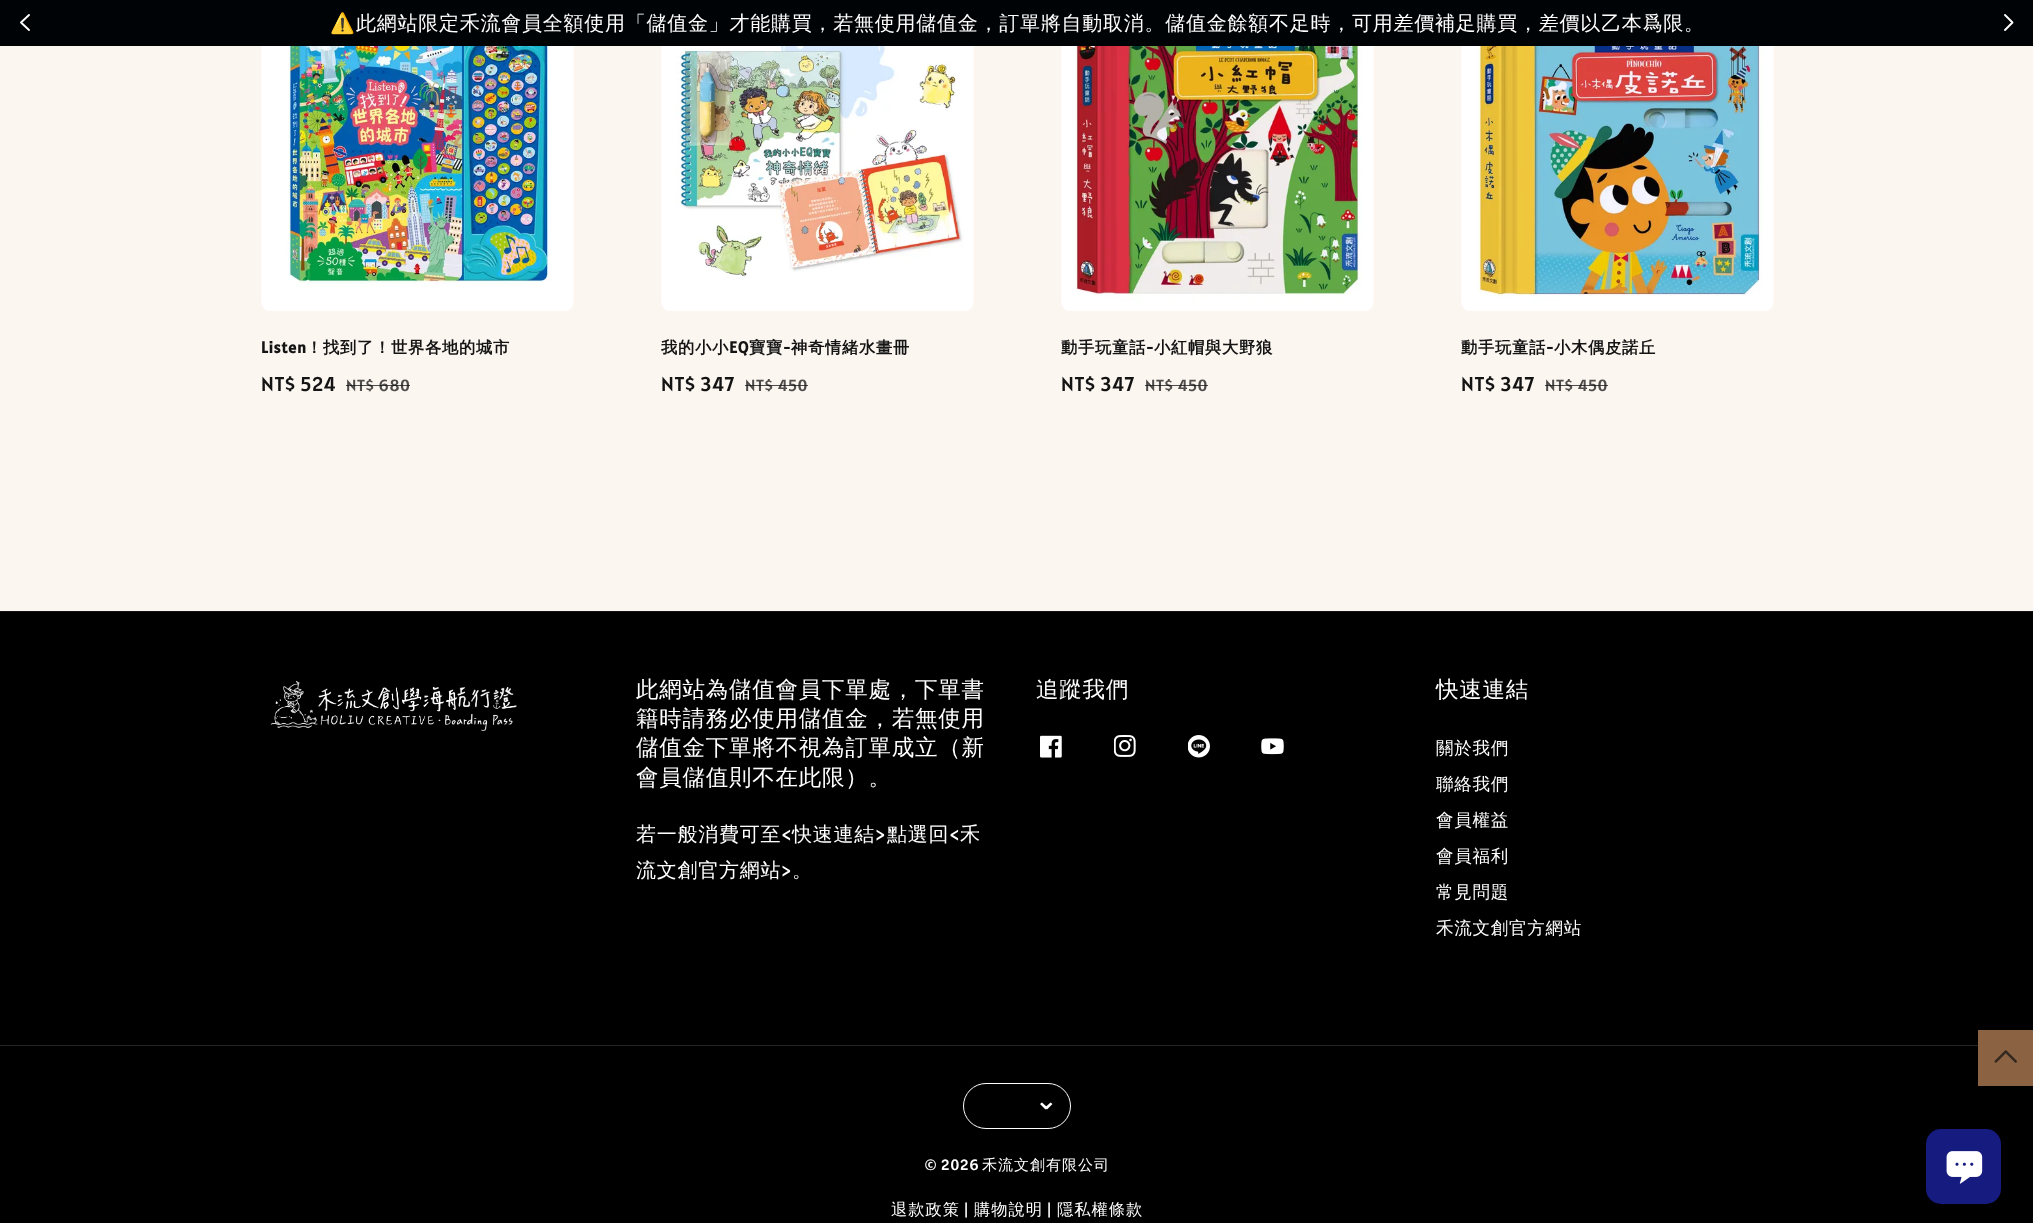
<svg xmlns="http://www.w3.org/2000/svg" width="2033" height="1223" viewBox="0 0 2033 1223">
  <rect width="100%" height="100%" fill="#fcf6f0"/>
  <rect x="0" y="0" width="2033" height="46" fill="#000305"/>
  <path d="M29 15L21 22.5L29 30" fill="none" stroke="#ffffff" stroke-width="1.9" stroke-linecap="round" stroke-linejoin="round"/>
  <text x="330" y="30" font-family="Noto Color Emoji" font-size="20" letter-spacing="0.75" fill="#ffffff">⚠️</text>
  <text x="356" y="30" font-family="WenQuanYi Zen Hei" font-size="20" font-weight="500" letter-spacing="0.75" fill="#ffffff">此網站限定禾流會員全額使用「儲值金」才能購買，若無使用儲值金，訂單將自動取消。儲值金餘額不足時，可用差價補足購買，差價以乙本爲限。</text>
  <path d="M2005 15L2012.5 22.5L2005 30" fill="none" stroke="#ffffff" stroke-width="1.9" stroke-linecap="round" stroke-linejoin="round"/>
  <image x="261" y="46" width="313" height="265" href="img1.png"/>
  <text x="261" y="353" font-family="Alatsi" font-size="16.25" font-weight="bold" letter-spacing="0.75" fill="#141414">Listen</text>
  <text x="306" y="353" font-family="WenQuanYi Zen Hei" font-size="16.25" font-weight="bold" letter-spacing="0.75" fill="#141414">！找到了！世界各地的城市</text>
  <text x="261" y="391" font-family="Alatsi" font-size="20" letter-spacing="0.75" fill="#141414">NT$ 524</text>
  <text x="346" y="391" font-family="Alatsi" font-size="16.25" letter-spacing="0.75" fill="#4e4d4b">NT$ 680</text>
  <rect x="346" y="385" width="64" height="1" fill="#141414" fill-opacity="0.75"/>
  <image x="661" y="46" width="313" height="265" href="img2.png"/>
  <text x="661" y="353" font-family="WenQuanYi Zen Hei" font-size="16.25" font-weight="bold" letter-spacing="0.75" fill="#141414">我的小小</text>
  <text x="729" y="353" font-family="Alatsi" font-size="16.25" font-weight="bold" letter-spacing="0.75" fill="#141414">EQ</text>
  <text x="749" y="353" font-family="WenQuanYi Zen Hei" font-size="16.25" font-weight="bold" letter-spacing="0.75" fill="#141414">寶寶</text>
  <text x="783" y="353" font-family="Alatsi" font-size="16.25" font-weight="bold" letter-spacing="0.75" fill="#141414">-</text>
  <text x="791" y="353" font-family="WenQuanYi Zen Hei" font-size="16.25" font-weight="bold" letter-spacing="0.75" fill="#141414">神奇情緒水畫冊</text>
  <text x="661" y="391" font-family="Alatsi" font-size="20" letter-spacing="0.75" fill="#141414">NT$ 347</text>
  <text x="745" y="391" font-family="Alatsi" font-size="16.25" letter-spacing="0.75" fill="#4e4d4b">NT$ 450</text>
  <rect x="745" y="385" width="63" height="1" fill="#141414" fill-opacity="0.75"/>
  <image x="1061" y="46" width="313" height="265" href="img3.png"/>
  <text x="1061" y="353" font-family="WenQuanYi Zen Hei" font-size="16.25" font-weight="bold" letter-spacing="0.75" fill="#141414">動手玩童話</text>
  <text x="1146" y="353" font-family="Alatsi" font-size="16.25" font-weight="bold" letter-spacing="0.75" fill="#141414">-</text>
  <text x="1154" y="353" font-family="WenQuanYi Zen Hei" font-size="16.25" font-weight="bold" letter-spacing="0.75" fill="#141414">小紅帽與大野狼</text>
  <text x="1061" y="391" font-family="Alatsi" font-size="20" letter-spacing="0.75" fill="#141414">NT$ 347</text>
  <text x="1145" y="391" font-family="Alatsi" font-size="16.25" letter-spacing="0.75" fill="#4e4d4b">NT$ 450</text>
  <rect x="1145" y="385" width="63" height="1" fill="#141414" fill-opacity="0.75"/>
  <image x="1461" y="46" width="313" height="265" href="img4.png"/>
  <text x="1461" y="353" font-family="WenQuanYi Zen Hei" font-size="16.25" font-weight="bold" letter-spacing="0.75" fill="#141414">動手玩童話</text>
  <text x="1546" y="353" font-family="Alatsi" font-size="16.25" font-weight="bold" letter-spacing="0.75" fill="#141414">-</text>
  <text x="1554" y="353" font-family="WenQuanYi Zen Hei" font-size="16.25" font-weight="bold" letter-spacing="0.75" fill="#141414">小木偶皮諾丘</text>
  <text x="1461" y="391" font-family="Alatsi" font-size="20" letter-spacing="0.75" fill="#141414">NT$ 347</text>
  <text x="1545" y="391" font-family="Alatsi" font-size="16.25" letter-spacing="0.75" fill="#4e4d4b">NT$ 450</text>
  <rect x="1545" y="385" width="63" height="1" fill="#141414" fill-opacity="0.75"/>
  <rect x="0" y="612" width="2033" height="611" fill="#000000"/>
  <rect x="0" y="611" width="2033" height="1" fill="#141414"/>
  <image x="270" y="681" width="247" height="50" href="img5.png"/>
  <text x="636" y="697" font-family="WenQuanYi Zen Hei" font-size="22.5" font-weight="500" letter-spacing="0.75" fill="#ffffff">此網站為儲值會員下單處，下單書</text>
  <text x="636" y="726" font-family="WenQuanYi Zen Hei" font-size="22.5" font-weight="500" letter-spacing="0.75" fill="#ffffff">籍時請務必使用儲值金，若無使用</text>
  <text x="636" y="755" font-family="WenQuanYi Zen Hei" font-size="22.5" font-weight="500" letter-spacing="0.75" fill="#ffffff">儲值金下單將不視為訂單成立（新</text>
  <text x="636" y="785" font-family="WenQuanYi Zen Hei" font-size="22.5" font-weight="500" letter-spacing="0.75" fill="#ffffff">會員儲值則不在此限）。</text>
  <text x="636" y="841" font-family="WenQuanYi Zen Hei" font-size="20" font-weight="500" letter-spacing="0.75" fill="#ffffff">若一般消費可至</text>
  <text x="781" y="841" font-family="Alatsi" font-size="20" letter-spacing="0.75" fill="#ffffff">&lt;</text>
  <text x="792" y="841" font-family="WenQuanYi Zen Hei" font-size="20" font-weight="500" letter-spacing="0.75" fill="#ffffff">快速連結</text>
  <text x="875" y="841" font-family="Alatsi" font-size="20" letter-spacing="0.75" fill="#ffffff">&gt;</text>
  <text x="887" y="841" font-family="WenQuanYi Zen Hei" font-size="20" font-weight="500" letter-spacing="0.75" fill="#ffffff">點選回</text>
  <text x="949" y="841" font-family="Alatsi" font-size="20" letter-spacing="0.75" fill="#ffffff">&lt;</text>
  <text x="960" y="841" font-family="WenQuanYi Zen Hei" font-size="20" font-weight="500" letter-spacing="0.75" fill="#ffffff">禾</text>
  <text x="636" y="877" font-family="WenQuanYi Zen Hei" font-size="20" font-weight="500" letter-spacing="0.75" fill="#ffffff">流文創官方網站</text>
  <text x="781" y="877" font-family="Alatsi" font-size="20" letter-spacing="0.75" fill="#ffffff">&gt;</text>
  <text x="792" y="877" font-family="WenQuanYi Zen Hei" font-size="20" font-weight="500" letter-spacing="0.75" fill="#ffffff">。</text>
  <text x="1036" y="697" font-family="WenQuanYi Zen Hei" font-size="22.5" font-weight="500" letter-spacing="0.75" fill="#ffffff">追蹤我們</text>
  <image x="1040" y="735" width="22" height="23" href="img6.png"/>
  <image x="1114" y="735" width="22" height="22" href="img7.png"/>
  <image x="1188" y="735" width="22" height="23" href="img8.png"/>
  <image x="1261" y="738" width="23" height="17" href="img9.png"/>
  <text x="1436" y="697" font-family="WenQuanYi Zen Hei" font-size="22.5" font-weight="500" letter-spacing="0.75" fill="#ffffff">快速連結</text>
  <text x="1436" y="754" font-family="WenQuanYi Zen Hei" font-size="17.5" font-weight="500" letter-spacing="0.75" fill="#ffffff">關於我們</text>
  <text x="1436" y="790" font-family="WenQuanYi Zen Hei" font-size="17.5" font-weight="500" letter-spacing="0.75" fill="#ffffff">聯絡我們</text>
  <text x="1436" y="826" font-family="WenQuanYi Zen Hei" font-size="17.5" font-weight="500" letter-spacing="0.75" fill="#ffffff">會員權益</text>
  <text x="1436" y="862" font-family="WenQuanYi Zen Hei" font-size="17.5" font-weight="500" letter-spacing="0.75" fill="#ffffff">會員福利</text>
  <text x="1436" y="898" font-family="WenQuanYi Zen Hei" font-size="17.5" font-weight="500" letter-spacing="0.75" fill="#ffffff">常見問題</text>
  <text x="1436" y="934" font-family="WenQuanYi Zen Hei" font-size="17.5" font-weight="500" letter-spacing="0.75" fill="#ffffff">禾流文創官方網站</text>
  <rect x="0" y="1045" width="1978" height="1" fill="#262626"/>
  <rect x="963.5" y="1083.5" width="107" height="45" rx="22.5" fill="none" stroke="#ffffff"/>
  <path d="M1050.5 1102.5L1052.5 1104L1047 1109.5L1045 1107.5Z" fill="#ffffff"/>
  <path d="M1040 1104L1042 1102.5L1047.5 1107.5L1045.5 1109.5Z" fill="#ffffff"/>
  <text x="925" y="1170" font-family="Alatsi" font-size="15" letter-spacing="1" fill="#ffffff">© 2026</text>
  <text x="982" y="1170" font-family="WenQuanYi Zen Hei" font-size="15" font-weight="500" letter-spacing="1" fill="#ffffff">禾流文創有限公司</text>
  <text x="891" y="1215" font-family="WenQuanYi Zen Hei" font-size="16.25" font-weight="500" letter-spacing="1" fill="#ffffff">退款政策</text>
  <text x="963" y="1215" font-family="Alatsi" font-size="15" letter-spacing="1" fill="#ffffff">|</text>
  <text x="974" y="1215" font-family="WenQuanYi Zen Hei" font-size="16.25" font-weight="500" letter-spacing="1" fill="#ffffff">購物說明</text>
  <text x="1046" y="1215" font-family="Alatsi" font-size="15" letter-spacing="1" fill="#ffffff">|</text>
  <text x="1057" y="1215" font-family="WenQuanYi Zen Hei" font-size="16.25" font-weight="500" letter-spacing="1" fill="#ffffff">隱私權條款</text>
  <rect x="1978" y="1030" width="55" height="56" fill="#8c6342"/>
  <image x="1994" y="1050" width="23" height="13" href="img10.png"/>
  <rect x="1926" y="1129" width="75" height="75" rx="15" fill="#161b7f"/>
  <image x="1946" y="1151" width="37" height="33" href="img11.png"/>
</svg>
